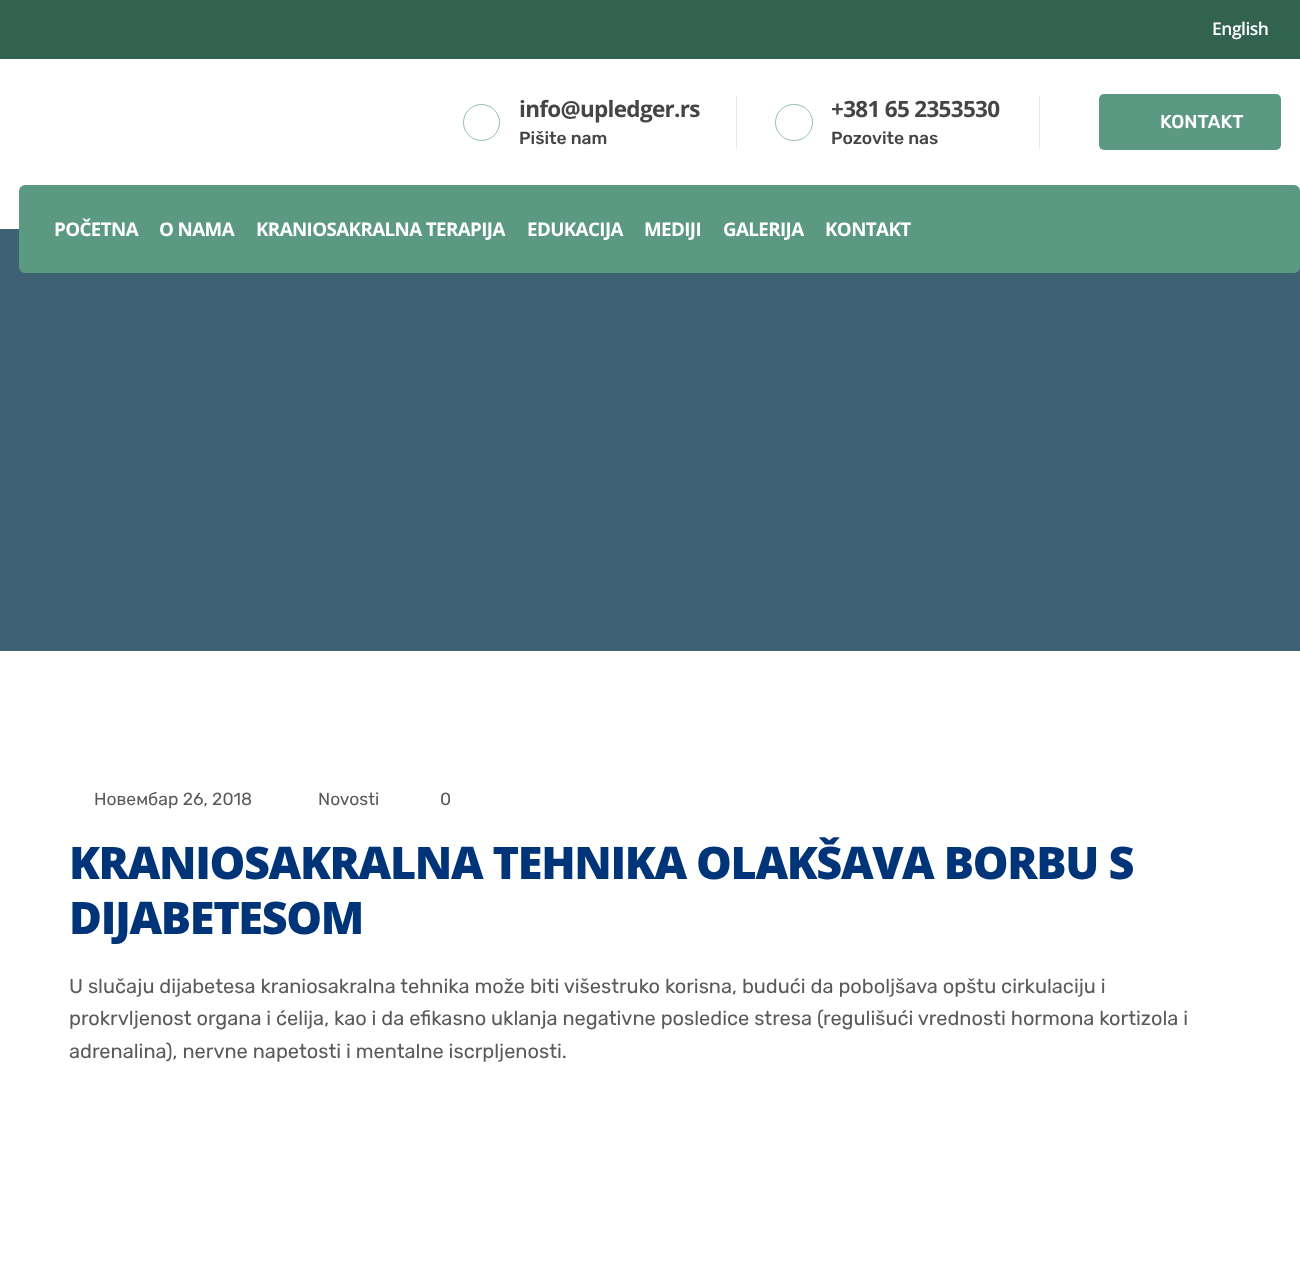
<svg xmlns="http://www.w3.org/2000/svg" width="1300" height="1277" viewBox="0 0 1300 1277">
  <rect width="100%" height="100%" fill="#ffffff"/>
  <rect x="0" y="0" width="1300" height="59" fill="#326250"/>
  <text x="1212" y="35" font-family="Open Sans" font-size="17.5" font-weight="600" letter-spacing="-0.5" fill="#ffffff">English</text>
  <rect x="736" y="96" width="1" height="52" fill="#e5eaf1"/>
  <circle cx="481.5" cy="122.5" r="18" fill="none" stroke="#92bfaf"/>
  <text x="519" y="117" font-family="Open Sans" font-size="22.5" font-weight="bold" letter-spacing="-0.7" fill="#454545">info@upledger.rs</text>
  <text x="519" y="144" font-family="Rubik" font-size="17.5" font-weight="500" fill="#454545">Pišite nam</text>
  <rect x="1039" y="96" width="1" height="52" fill="#e5eaf1"/>
  <rect x="775.5" y="104.5" width="37" height="36" rx="18" fill="none" stroke="#92bfaf"/>
  <text x="831" y="117" font-family="Open Sans" font-size="22.5" font-weight="bold" letter-spacing="-0.7" fill="#454545">+381 65 2353530</text>
  <text x="831" y="144" font-family="Rubik" font-size="17.5" font-weight="500" fill="#454545">Pozovite nas</text>
  <rect x="1099" y="94" width="182" height="56" rx="5" fill="#5c9983"/>
  <text x="1160" y="128" font-family="Rubik" font-size="18.75" font-weight="500" fill="#ffffff">KONTAKT</text>
  <rect x="0" y="229" width="1300" height="422" fill="#3e6173"/>
  <rect x="19" y="185" width="1281" height="88" rx="6" fill="#5c9983"/>
  <text x="54" y="236" font-family="Open Sans" font-size="18.75" font-weight="bold" letter-spacing="-0.6" fill="#ffffff">POČETNA</text>
  <text x="159" y="236" font-family="Open Sans" font-size="18.75" font-weight="bold" letter-spacing="-0.6" fill="#ffffff">O NAMA</text>
  <text x="256" y="236" font-family="Open Sans" font-size="18.75" font-weight="bold" letter-spacing="-0.6" fill="#ffffff">KRANIOSAKRALNA TERAPIJA</text>
  <text x="527" y="236" font-family="Open Sans" font-size="18.75" font-weight="bold" letter-spacing="-0.6" fill="#ffffff">EDUKACIJA</text>
  <text x="644" y="236" font-family="Open Sans" font-size="18.75" font-weight="bold" letter-spacing="-0.6" fill="#ffffff">MEDIJI</text>
  <text x="723" y="236" font-family="Open Sans" font-size="18.75" font-weight="bold" letter-spacing="-0.6" fill="#ffffff">GALERIJA</text>
  <text x="825" y="236" font-family="Open Sans" font-size="18.75" font-weight="bold" letter-spacing="-0.6" fill="#ffffff">KONTAKT</text>
  <text x="94" y="805" font-family="Rubik" font-size="17.5" fill="#5a5a5a">Новембар 26, 2018</text>
  <text x="318" y="805" font-family="Rubik" font-size="17.5" fill="#5a5a5a">Novosti</text>
  <text x="440" y="805" font-family="Rubik" font-size="17.5" fill="#5a5a5a">0</text>
  <text x="69" y="879" font-family="Open Sans" font-size="45" font-weight="800" letter-spacing="-1.35" fill="#003478">KRANIOSAKRALNA TEHNIKA OLAKŠAVA BORBU S</text>
  <text x="69" y="934" font-family="Open Sans" font-size="45" font-weight="800" letter-spacing="-1.35" fill="#003478">DIJABETESOM</text>
  <text x="69" y="993" font-family="Rubik" font-size="20" fill="#5a5a5a">U slučaju dijabetesa kraniosakralna tehnika može biti višestruko korisna, budući da poboljšava opštu cirkulaciju i</text>
  <text x="69" y="1025" font-family="Rubik" font-size="20" fill="#5a5a5a">prokrvljenost organa i ćelija, kao i da efikasno uklanja negativne posledice stresa (regulišući vrednosti hormona kortizola i</text>
  <text x="69" y="1058" font-family="Rubik" font-size="20" fill="#5a5a5a">adrenalina), nervne napetosti i mentalne iscrpljenosti.</text>
</svg>
